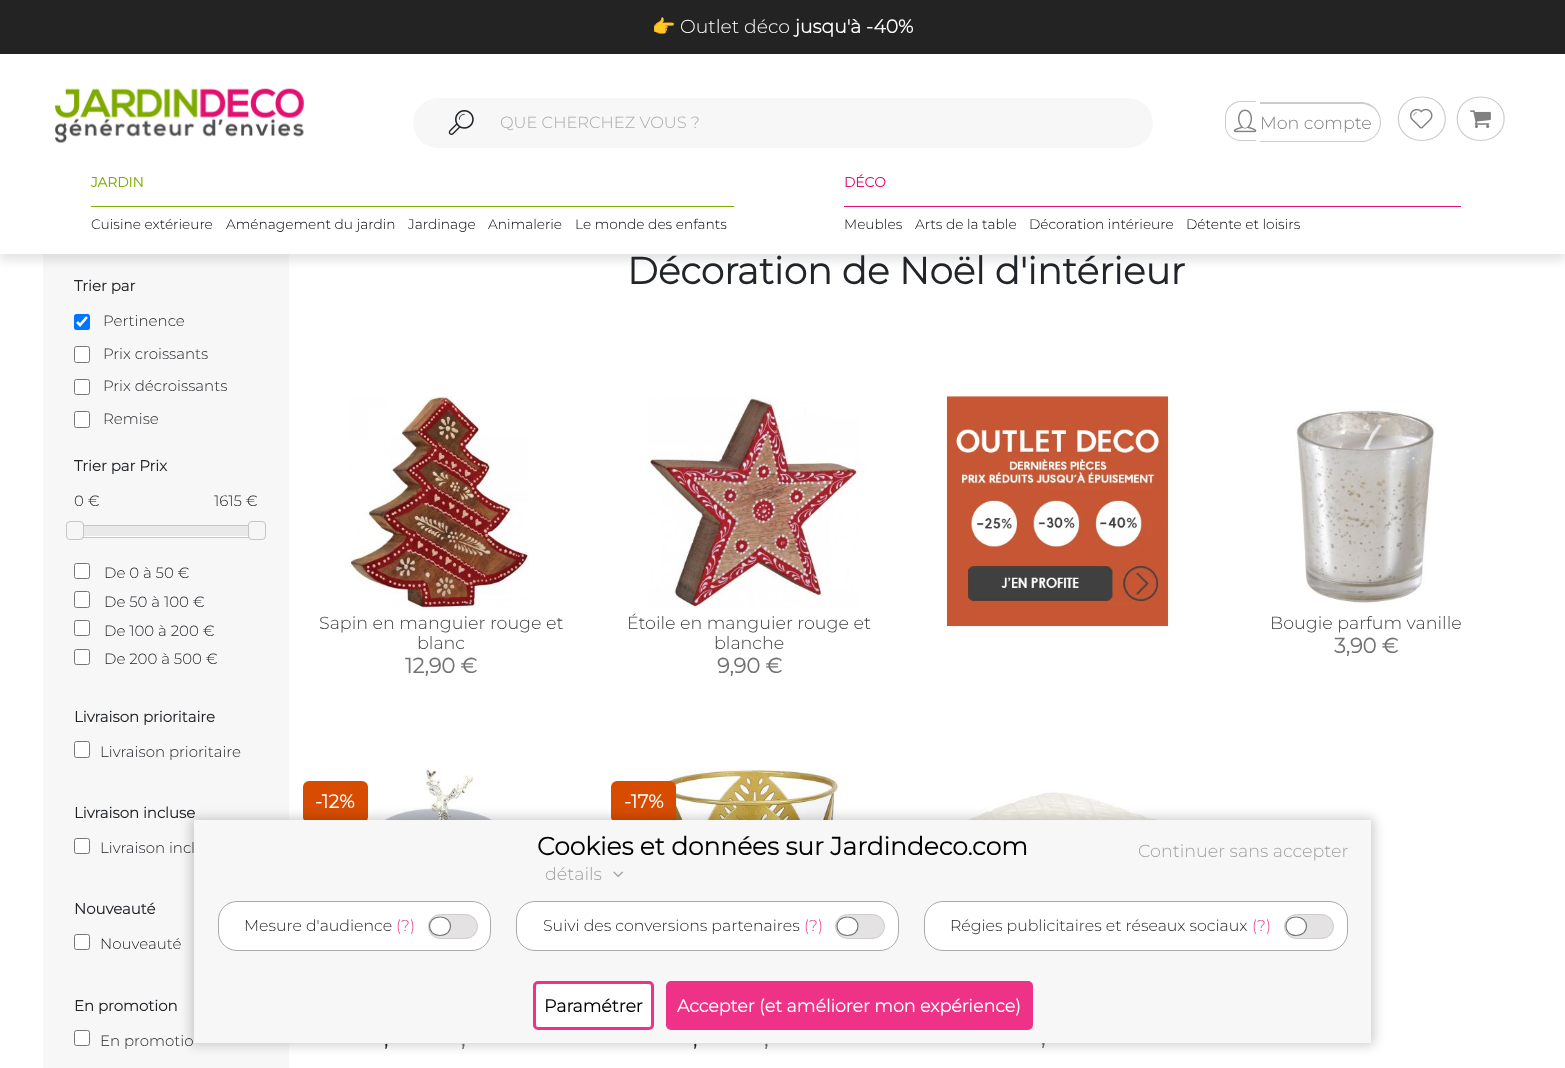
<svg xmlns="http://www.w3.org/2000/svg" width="1565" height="1068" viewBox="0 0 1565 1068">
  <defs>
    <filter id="blur1" x="-50%" y="-200%" width="200%" height="500%"><feGaussianBlur stdDeviation="5"/></filter>
    <filter id="blur2" x="-50%" y="-200%" width="200%" height="500%"><feGaussianBlur stdDeviation="6"/></filter>
  </defs>
  <rect width="100%" height="100%" fill="#ffffff"/>
  <rect x="43" y="254" width="246" height="814" fill="#f8f7f8"/>
  <rect x="0" y="8" width="1565" height="253" fill="#000000" fill-opacity="0.1" filter="url(#blur1)"/>
  <rect x="0" y="54" width="1565" height="200" fill="#ffffff"/>
  <rect x="0" y="0" width="1565" height="54" fill="#232323"/>
  <text x="652" y="33" font-family="Noto Color Emoji" font-size="18.75" fill="#ffffff">👉</text>
  <text x="680" y="33" font-family="Montserrat" font-size="18.75" font-weight="300" fill="#ffffff">Outlet déco</text>
  <text x="795" y="33" font-family="Montserrat" font-size="18.75" font-weight="bold" fill="#ffffff">jusqu'à -40%</text>
  <image x="55" y="88" width="249" height="55" href="img1.png"/>
  <rect x="413" y="98" width="740" height="50" rx="25" fill="#f7f7f7"/>
  <image x="448" y="110" width="26" height="25" href="img2.png"/>
  <text x="500" y="128" font-family="Montserrat" font-size="16.25" font-weight="300" fill="#aaaaaa">QUE CHERCHEZ VOUS ?</text>
  <path d="M1241 101H1256V141H1241C1232 141 1225 134 1225 126V117C1225 108 1232 101 1241 101ZM1241 102H1256V140H1241C1233 140 1226 134 1226 126V117C1226 109 1233 102 1241 102Z" fill="#cccccc" fill-rule="evenodd"/>
  <path d="M1260 102H1361C1372 102 1381 111 1381 122C1381 134 1372 142 1361 142H1260ZM1260 104H1361C1372 104 1380 112 1380 122C1380 133 1372 141 1361 141H1260Z" fill="#cccccc" fill-rule="evenodd"/>
  <image x="1233" y="109" width="24" height="24" href="img3.png"/>
  <text x="1260" y="129" font-family="Montserrat" font-size="17.5" font-weight="300" fill="#808080">Mon compte</text>
  <path d="M1422 97C1453 97 1453 140.5 1422 140.5C1390.5 140.5 1390.5 97 1422 97Z" fill="none" stroke="#cccccc" stroke-width="1.2"/>
  <image x="1410" y="108" width="23" height="21" href="img4.png"/>
  <path d="M1480.5 97C1512 97 1512 140.5 1480.5 140.5C1449.5 140.5 1449.5 97 1480.5 97Z" fill="none" stroke="#cccccc" stroke-width="1.2"/>
  <image x="1470" y="110" width="21" height="18" href="img5.png"/>
  <rect x="91" y="206" width="643" height="1" fill="#7faa01"/>
  <text x="91" y="187" font-family="Montserrat" font-size="13.75" font-weight="bold" fill="#7faa01">JARDIN</text>
  <text x="91" y="229" font-family="Montserrat" font-size="13.75" font-weight="300" fill="#000000">Cuisine extérieure</text>
  <text x="226" y="229" font-family="Montserrat" font-size="13.75" font-weight="300" fill="#000000">Aménagement du jardin</text>
  <text x="408" y="229" font-family="Montserrat" font-size="13.75" font-weight="300" fill="#000000">Jardinage</text>
  <text x="488" y="229" font-family="Montserrat" font-size="13.75" font-weight="300" fill="#000000">Animalerie</text>
  <text x="575" y="229" font-family="Montserrat" font-size="13.75" font-weight="300" fill="#000000">Le monde des enfants</text>
  <rect x="844" y="206" width="617" height="1" fill="#e11071"/>
  <text x="844" y="187" font-family="Montserrat" font-size="13.75" font-weight="bold" fill="#e11071">DÉCO</text>
  <text x="844" y="229" font-family="Montserrat" font-size="13.75" font-weight="300" fill="#000000">Meubles</text>
  <text x="915" y="229" font-family="Montserrat" font-size="13.75" font-weight="300" fill="#000000">Arts de la table</text>
  <text x="1029" y="229" font-family="Montserrat" font-size="13.75" font-weight="300" fill="#000000">Décoration intérieure</text>
  <text x="1186" y="229" font-family="Montserrat" font-size="13.75" font-weight="300" fill="#000000">Détente et loisirs</text>
  <text x="74" y="291" font-family="Montserrat" font-size="15" font-weight="bold" fill="#212529">Trier par</text>
  <rect x="74" y="314" width="16" height="16" rx="2.5" fill="#0075ff"/>
  <path d="M77 322L80 325L87 317" fill="none" stroke="#ffffff" stroke-width="2.6"/>
  <text x="103" y="326" font-family="Montserrat" font-size="15" font-weight="300" fill="#212529">Pertinence</text>
  <rect x="74.5" y="346.5" width="15" height="16" rx="2" fill="#ffffff" stroke="#767676"/>
  <text x="103" y="359" font-family="Montserrat" font-size="15" font-weight="300" fill="#212529">Prix croissants</text>
  <rect x="74.5" y="379.5" width="15" height="15" rx="2" fill="#ffffff" stroke="#767676"/>
  <text x="103" y="391" font-family="Montserrat" font-size="15" font-weight="300" fill="#212529">Prix décroissants</text>
  <rect x="74.5" y="411.5" width="15" height="16" rx="2" fill="#ffffff" stroke="#767676"/>
  <text x="103" y="424" font-family="Montserrat" font-size="15" font-weight="300" fill="#212529">Remise</text>
  <text x="74" y="471" font-family="Montserrat" font-size="15" font-weight="bold" fill="#212529">Trier par Prix</text>
  <text x="74" y="506" font-family="Montserrat" font-size="15" font-weight="300" fill="#212529">0 €</text>
  <text x="214" y="506" font-family="Montserrat" font-size="15" font-weight="300" fill="#212529">1615 €</text>
  <rect x="83" y="536" width="166" height="1" fill="#ffffff"/>
  <rect x="74.5" y="525.5" width="183" height="12" fill="none" stroke="#c5c5c5"/>
  <rect x="66.5" y="521.5" width="17" height="18" rx="3.5" fill="#f6f6f6" stroke="#c5c5c5"/>
  <rect x="84" y="526" width="164" height="10" fill="#e9e9e9"/>
  <rect x="248.5" y="521.5" width="17" height="18" rx="3.5" fill="#f6f6f6" stroke="#c5c5c5"/>
  <rect x="74.5" y="563.5" width="15" height="15" rx="2" fill="#ffffff" stroke="#767676"/>
  <text x="104" y="578" font-family="Montserrat" font-size="15" font-weight="300" fill="#212529">De 0 à 50 €</text>
  <rect x="74.5" y="591.5" width="15" height="16" rx="2" fill="#ffffff" stroke="#767676"/>
  <text x="104" y="607" font-family="Montserrat" font-size="15" font-weight="300" fill="#212529">De 50 à 100 €</text>
  <rect x="74.5" y="620.5" width="15" height="15" rx="2" fill="#ffffff" stroke="#767676"/>
  <text x="104" y="636" font-family="Montserrat" font-size="15" font-weight="300" fill="#212529">De 100 à 200 €</text>
  <rect x="74.5" y="649.5" width="15" height="15" rx="2" fill="#ffffff" stroke="#767676"/>
  <text x="104" y="664" font-family="Montserrat" font-size="15" font-weight="300" fill="#212529">De 200 à 500 €</text>
  <text x="74" y="722" font-family="Montserrat" font-size="15" font-weight="bold" fill="#212529">Livraison prioritaire</text>
  <rect x="74.5" y="741.5" width="15" height="16" rx="2" fill="#ffffff" stroke="#767676"/>
  <text x="100" y="757" font-family="Montserrat" font-size="15" font-weight="300" fill="#212529">Livraison prioritaire</text>
  <text x="74" y="818" font-family="Montserrat" font-size="15" font-weight="bold" fill="#212529">Livraison incluse</text>
  <rect x="74.5" y="838.5" width="15" height="15" rx="2" fill="#ffffff" stroke="#767676"/>
  <text x="100" y="853" font-family="Montserrat" font-size="15" font-weight="300" fill="#212529">Livraison incl</text>
  <text x="74" y="914" font-family="Montserrat" font-size="15" font-weight="bold" fill="#212529">Nouveauté</text>
  <rect x="74.5" y="934.5" width="15" height="15" rx="2" fill="#ffffff" stroke="#767676"/>
  <text x="100" y="949" font-family="Montserrat" font-size="15" font-weight="300" fill="#212529">Nouveauté</text>
  <text x="74" y="1011" font-family="Montserrat" font-size="15" font-weight="bold" fill="#212529">En promotion</text>
  <rect x="74.5" y="1030.5" width="15" height="15" rx="2" fill="#ffffff" stroke="#767676"/>
  <text x="100" y="1046" font-family="Montserrat" font-size="15" font-weight="300" fill="#212529">En promotio</text>
  <text x="627" y="284" font-family="Montserrat" font-size="37.5" font-weight="bold" fill="#212529">Décoration de Noël d'intérieur</text>
  <image x="946" y="396" width="223" height="231" href="img6.png"/>
  <image x="347" y="396" width="182" height="214" href="img7.png"/>
  <text x="319" y="629" font-family="Montserrat" font-size="17.5" font-weight="300" fill="#3f3f3f">Sapin en manguier rouge et</text>
  <text x="417" y="649" font-family="Montserrat" font-size="17.5" font-weight="300" fill="#3f3f3f">blanc</text>
  <text x="405" y="673" font-family="Montserrat" font-size="21" font-weight="bold" fill="#737373">12,90 €</text>
  <image x="648" y="396" width="217" height="212" href="img8.png"/>
  <text x="627" y="629" font-family="Montserrat" font-size="17.5" font-weight="300" fill="#3f3f3f">Étoile en manguier rouge et</text>
  <text x="714" y="649" font-family="Montserrat" font-size="17.5" font-weight="300" fill="#3f3f3f">blanche</text>
  <text x="717" y="673" font-family="Montserrat" font-size="21" font-weight="bold" fill="#737373">9,90 €</text>
  <image x="1295" y="407" width="142" height="199" href="img9.png"/>
  <text x="1270" y="629" font-family="Montserrat" font-size="17.5" font-weight="300" fill="#3f3f3f">Bougie parfum vanille</text>
  <text x="1334" y="653" font-family="Montserrat" font-size="21" font-weight="bold" fill="#737373">3,90 €</text>
  <rect x="303" y="781" width="65" height="42" rx="6" fill="#d74c00"/>
  <text x="315" y="808" font-family="Montserrat" font-size="18.75" font-weight="bold" fill="#ffffff">-12%</text>
  <image x="375" y="769" width="132" height="51" href="img10.png"/>
  <text x="384" y="1046" font-family="Montserrat" font-size="20" font-weight="bold" fill="#212529">,</text>
  <text x="461" y="1046" font-family="Montserrat" font-size="21" font-weight="bold" fill="#737373">,</text>
  <image x="658" y="769" width="185" height="51" href="img11.png"/>
  <rect x="611" y="781" width="65" height="42" rx="6" fill="#d74c00"/>
  <text x="624" y="808" font-family="Montserrat" font-size="18.75" font-weight="bold" fill="#ffffff">-17%</text>
  <text x="693" y="1046" font-family="Montserrat" font-size="20" font-weight="bold" fill="#212529">,</text>
  <text x="764" y="1046" font-family="Montserrat" font-size="21" font-weight="bold" fill="#737373">,</text>
  <image x="920" y="791" width="275" height="29" href="img12.png"/>
  <text x="1041" y="1045" font-family="Montserrat" font-size="21" font-weight="bold" fill="#737373">,</text>
  <rect x="191" y="818" width="1183" height="227" fill="#000000" fill-opacity="0.2" filter="url(#blur2)"/>
  <rect x="194" y="820" width="1177" height="223" fill="#f7f7f7"/>
  <text x="537" y="855" font-family="Montserrat" font-size="25" font-weight="bold" fill="#000000">Cookies et données sur Jardindeco.com</text>
  <text x="545" y="880" font-family="Montserrat" font-size="17.5" font-weight="300" fill="#a1a1a1">détails</text>
  <image x="613" y="871" width="10" height="7" href="img13.png"/>
  <text x="1138" y="857" font-family="Montserrat" font-size="17.5" font-weight="300" fill="#a1a1a1">Continuer sans accepter</text>
  <rect x="534.5" y="982.5" width="118" height="46" rx="3.5" fill="#ffffff" stroke="#ee3287" stroke-width="3"/>
  <text x="544" y="1012" font-family="Montserrat" font-size="17.5" font-weight="bold" fill="#000000">Paramétrer</text>
  <rect x="667.5" y="982.5" width="364" height="46" rx="3.5" fill="#ee3287" stroke="#ee3287" stroke-width="3"/>
  <text x="677" y="1012" font-family="Montserrat" font-size="17.5" font-weight="bold" fill="#ffffff">Accepter (et améliorer mon expérience)</text>
  <rect x="218.5" y="901.5" width="272" height="49" rx="18.5" fill="#ffffff" stroke="#aaaaaa"/>
  <text x="244" y="931" font-family="Montserrat" font-size="15.75" font-weight="300" fill="#212529">Mesure d'audience</text>
  <text x="396" y="931" font-family="Montserrat" font-size="15.75" font-weight="300" fill="#e53388">(?)</text>
  <rect x="428.5" y="914.5" width="49" height="24" rx="12" fill="#e4e2e2" stroke="#cccccc"/>
  <ellipse cx="440" cy="926" rx="11" ry="10" fill="#ffffff"/>
  <path d="M440 917C454 917 454 935.5 440 935.5C426 935.5 426 917 440 917Z" fill="none" stroke="#757575" stroke-width="1.2"/>
  <rect x="516.5" y="901.5" width="382" height="49" rx="18.5" fill="#ffffff" stroke="#aaaaaa"/>
  <text x="543" y="931" font-family="Montserrat" font-size="15.75" font-weight="300" fill="#212529">Suivi des conversions partenaires</text>
  <text x="804" y="931" font-family="Montserrat" font-size="15.75" font-weight="300" fill="#e53388">(?)</text>
  <rect x="835.5" y="914.5" width="49" height="24" rx="12" fill="#e4e2e2" stroke="#cccccc"/>
  <ellipse cx="847.5" cy="926" rx="11" ry="10" fill="#ffffff"/>
  <path d="M847.5 917C861.5 917 861.5 935.5 847.5 935.5C833.5 935.5 833.5 917 847.5 917Z" fill="none" stroke="#757575" stroke-width="1.2"/>
  <rect x="924.5" y="901.5" width="423" height="49" rx="18.5" fill="#ffffff" stroke="#aaaaaa"/>
  <text x="950" y="931" font-family="Montserrat" font-size="15.75" font-weight="300" fill="#212529">Régies publicitaires et réseaux sociaux</text>
  <text x="1252" y="931" font-family="Montserrat" font-size="15.75" font-weight="300" fill="#e53388">(?)</text>
  <rect x="1284.5" y="914.5" width="49" height="24" rx="12" fill="#e4e2e2" stroke="#cccccc"/>
  <ellipse cx="1296" cy="926" rx="11" ry="10" fill="#ffffff"/>
  <path d="M1296 917C1310 917 1310 935.5 1296 935.5C1282.5 935.5 1282.5 917 1296 917Z" fill="none" stroke="#757575" stroke-width="1.2"/>
</svg>
